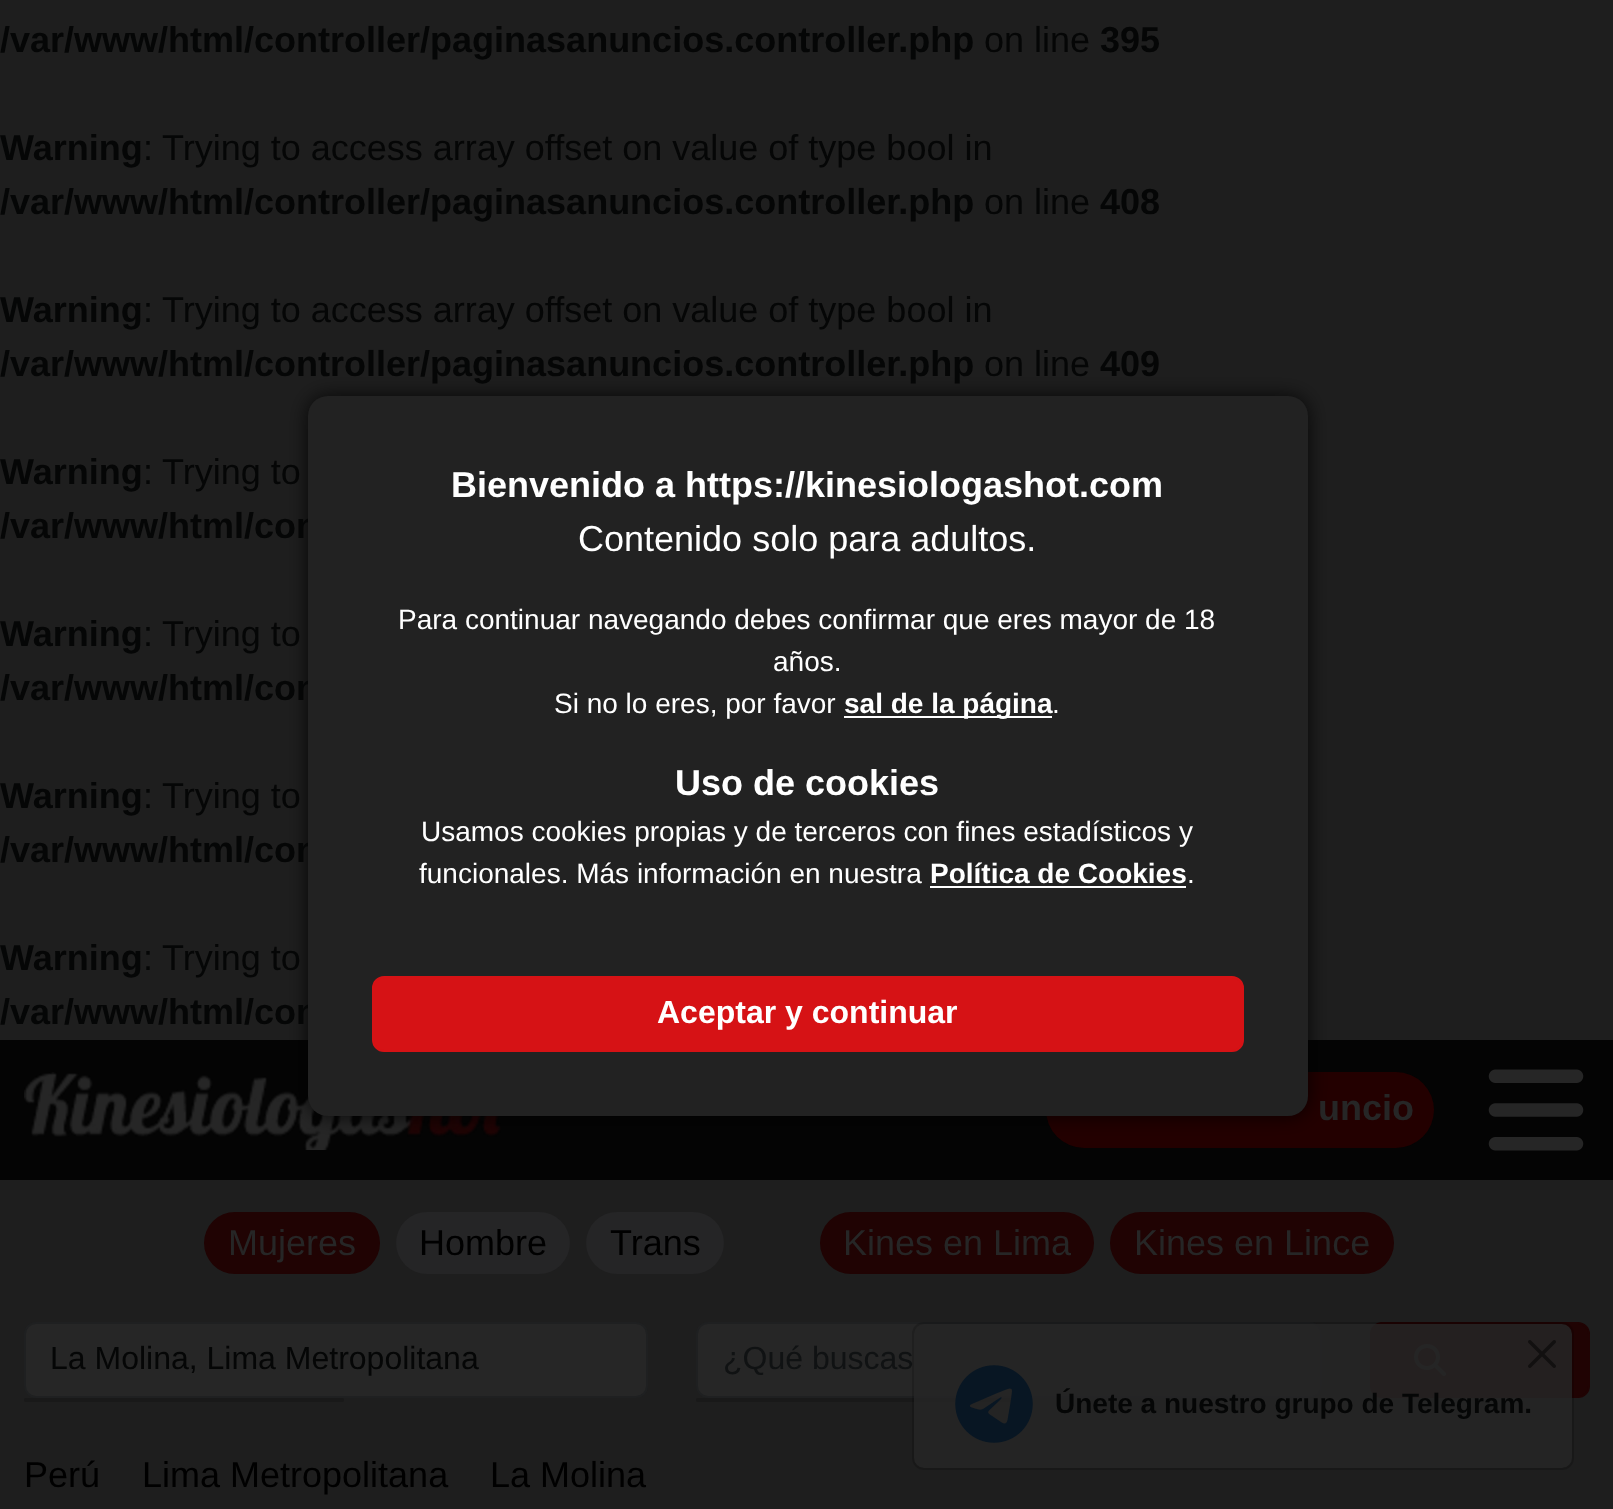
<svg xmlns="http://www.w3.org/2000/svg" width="1613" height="1509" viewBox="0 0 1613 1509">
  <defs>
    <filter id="blur1" x="-50%" y="-200%" width="200%" height="500%"><feGaussianBlur stdDeviation="10"/></filter>
  </defs>
  <rect width="100%" height="100%" fill="#1e1e1e"/>
  <text x="0" y="52" font-family="Liberation Sans" font-size="36" font-weight="bold" fill="#050606">/var/www/html/controller/paginasanuncios.controller.php</text>
  <text x="984" y="52" font-family="Liberation Sans" font-size="36" fill="#050606">on line</text>
  <text x="1100" y="52" font-family="Liberation Sans" font-size="36" font-weight="bold" fill="#050606">395</text>
  <text x="0" y="160" font-family="Liberation Sans" font-size="36" font-weight="bold" fill="#050606">Warning</text>
  <text x="143" y="160" font-family="Liberation Sans" font-size="36" fill="#050606">:</text>
  <text x="162" y="160" font-family="Liberation Sans" font-size="36" fill="#050606">Trying to access array offset on value of type bool in</text>
  <text x="0" y="214" font-family="Liberation Sans" font-size="36" font-weight="bold" fill="#050606">/var/www/html/controller/paginasanuncios.controller.php</text>
  <text x="984" y="214" font-family="Liberation Sans" font-size="36" fill="#050606">on line</text>
  <text x="1100" y="214" font-family="Liberation Sans" font-size="36" font-weight="bold" fill="#050606">408</text>
  <text x="0" y="322" font-family="Liberation Sans" font-size="36" font-weight="bold" fill="#050606">Warning</text>
  <text x="143" y="322" font-family="Liberation Sans" font-size="36" fill="#050606">:</text>
  <text x="162" y="322" font-family="Liberation Sans" font-size="36" fill="#050606">Trying to access array offset on value of type bool in</text>
  <text x="0" y="376" font-family="Liberation Sans" font-size="36" font-weight="bold" fill="#050606">/var/www/html/controller/paginasanuncios.controller.php</text>
  <text x="984" y="376" font-family="Liberation Sans" font-size="36" fill="#050606">on line</text>
  <text x="1100" y="376" font-family="Liberation Sans" font-size="36" font-weight="bold" fill="#050606">409</text>
  <text x="0" y="484" font-family="Liberation Sans" font-size="36" font-weight="bold" fill="#050606">Warning</text>
  <text x="143" y="484" font-family="Liberation Sans" font-size="36" fill="#050606">:</text>
  <text x="162" y="484" font-family="Liberation Sans" font-size="36" fill="#050606">Trying to</text>
  <rect x="0" y="1040" width="1613" height="140" fill="#040404"/>
  <image x="24" y="1072" width="477" height="78" href="img1.png"/>
  <rect x="1046" y="1072" width="388" height="76" rx="38" fill="#230000"/>
  <rect x="308" y="396" width="1000" height="720" rx="20" fill="#000000" fill-opacity="0.8" filter="url(#blur1)"/>
  <text x="0" y="538" font-family="Liberation Sans" font-size="36" font-weight="bold" fill="#050606">/var/www/html/con</text>
  <text x="0" y="700" font-family="Liberation Sans" font-size="36" font-weight="bold" fill="#050606">/var/www/html/con</text>
  <text x="0" y="862" font-family="Liberation Sans" font-size="36" font-weight="bold" fill="#050606">/var/www/html/con</text>
  <text x="0" y="1024" font-family="Liberation Sans" font-size="36" font-weight="bold" fill="#050606">/var/www/html/con</text>
  <rect x="308" y="396" width="1000" height="720" rx="20" fill="#222222"/>
  <text x="451" y="497" font-family="Liberation Sans" font-size="36" font-weight="bold" fill="#ffffff">Bienvenido a https://kinesiologashot.com</text>
  <text x="578" y="551" font-family="Liberation Sans" font-size="36" fill="#ffffff">Contenido solo para adultos.</text>
  <text x="398" y="629" font-family="Liberation Sans" font-size="28" fill="#ffffff">Para continuar navegando debes confirmar que eres mayor de 18</text>
  <text x="773" y="671" font-family="Liberation Sans" font-size="28" fill="#ffffff">años.</text>
  <text x="554" y="713" font-family="Liberation Sans" font-size="28" fill="#ffffff">Si no lo eres, por favor</text>
  <rect x="844" y="716" width="208" height="2" fill="#ffffff"/>
  <text x="844" y="713" font-family="Liberation Sans" font-size="28" font-weight="bold" fill="#ffffff">sal de la página</text>
  <text x="1052" y="713" font-family="Liberation Sans" font-size="28" fill="#ffffff">.</text>
  <text x="675" y="795" font-family="Liberation Sans" font-size="36" font-weight="bold" fill="#ffffff">Uso de cookies</text>
  <text x="421" y="841" font-family="Liberation Sans" font-size="28" fill="#ffffff">Usamos cookies propias y de terceros con fines estadísticos y</text>
  <text x="419" y="883" font-family="Liberation Sans" font-size="28" fill="#ffffff">funcionales. Más información en nuestra</text>
  <text x="930" y="883" font-family="Liberation Sans" font-size="28" font-weight="bold" fill="#ffffff">Política de Cookies</text>
  <rect x="930" y="886" width="256" height="2" fill="#ffffff"/>
  <text x="1187" y="883" font-family="Liberation Sans" font-size="28" fill="#ffffff">.</text>
  <rect x="373" y="977" width="870" height="74" rx="11" fill="#d61215" stroke="#d61215" stroke-width="2"/>
  <text x="657" y="1023" font-family="Liberation Sans" font-size="32" font-weight="bold" fill="#ffffff">Aceptar y continuar</text>
  <text x="0" y="646" font-family="Liberation Sans" font-size="36" font-weight="bold" fill="#050606">Warning</text>
  <text x="143" y="646" font-family="Liberation Sans" font-size="36" fill="#050606">:</text>
  <text x="162" y="646" font-family="Liberation Sans" font-size="36" fill="#050606">Trying to</text>
  <text x="0" y="808" font-family="Liberation Sans" font-size="36" font-weight="bold" fill="#050606">Warning</text>
  <text x="143" y="808" font-family="Liberation Sans" font-size="36" fill="#050606">:</text>
  <text x="162" y="808" font-family="Liberation Sans" font-size="36" fill="#050606">Trying to</text>
  <text x="0" y="970" font-family="Liberation Sans" font-size="36" font-weight="bold" fill="#050606">Warning</text>
  <text x="143" y="970" font-family="Liberation Sans" font-size="36" fill="#050606">:</text>
  <text x="162" y="970" font-family="Liberation Sans" font-size="36" fill="#050606">Trying to</text>
  <text x="1318" y="1120" font-family="Liberation Sans" font-size="36" font-weight="bold" fill="#262626">uncio</text>
  <image x="1488" y="1069" width="96" height="82" href="img2.png"/>
  <rect x="204" y="1212" width="176" height="62" rx="31" fill="#200303"/>
  <text x="228" y="1255" font-family="Liberation Sans" font-size="36" fill="#262626">Mujeres</text>
  <rect x="396" y="1212" width="174" height="62" rx="31" fill="#252526"/>
  <text x="419" y="1255" font-family="Liberation Sans" font-size="36" fill="#000000">Hombre</text>
  <rect x="586" y="1212" width="138" height="62" rx="31" fill="#252526"/>
  <text x="610" y="1255" font-family="Liberation Sans" font-size="36" fill="#000000">Trans</text>
  <rect x="820" y="1212" width="274" height="62" rx="31" fill="#200303"/>
  <text x="843" y="1255" font-family="Liberation Sans" font-size="36" fill="#262626">Kines en Lima</text>
  <rect x="1110" y="1212" width="284" height="62" rx="31" fill="#200303"/>
  <text x="1134" y="1255" font-family="Liberation Sans" font-size="36" fill="#262626">Kines en Lince</text>
  <rect x="25" y="1323" width="622" height="74" rx="11" fill="#262626" stroke="#1f2021" stroke-width="2"/>
  <text x="50" y="1369" font-family="Liberation Sans" font-size="32" fill="#050606">La Molina, Lima Metropolitana</text>
  <rect x="24" y="1398" width="320" height="4" rx="2" fill="#191919"/>
  <rect x="697" y="1323" width="624" height="74" rx="11" fill="#262626" stroke="#1f2021" stroke-width="2"/>
  <text x="723" y="1369" font-family="Liberation Sans" font-size="32" fill="#101213">¿Qué buscas</text>
  <rect x="696" y="1398" width="320" height="4" rx="2" fill="#191919"/>
  <rect x="1371" y="1323" width="218" height="74" rx="11" fill="#200303" stroke="#200303" stroke-width="2"/>
  <image x="1414" y="1344" width="32" height="32" href="img3.png"/>
  <text x="24" y="1487" font-family="Liberation Sans" font-size="36" fill="#000000">Perú</text>
  <text x="142" y="1487" font-family="Liberation Sans" font-size="36" fill="#000000">Lima Metropolitana</text>
  <text x="490" y="1487" font-family="Liberation Sans" font-size="36" fill="#000000">La Molina</text>
  <rect x="914" y="1324" width="658" height="144" rx="10" fill="#262626" fill-opacity="0.85"/>
  <rect x="913" y="1323" width="660" height="146" rx="11" fill="none" stroke="#000000" stroke-opacity="0.18" stroke-width="2"/>
  <image x="1528" y="1340" width="28" height="28" href="img4.png"/>
  <image x="955" y="1365" width="78" height="78" href="img5.png"/>
  <text x="1055" y="1413" font-family="Liberation Sans" font-size="28" font-weight="bold" fill="#050606">Únete a nuestro grupo de Telegram.</text>
</svg>
